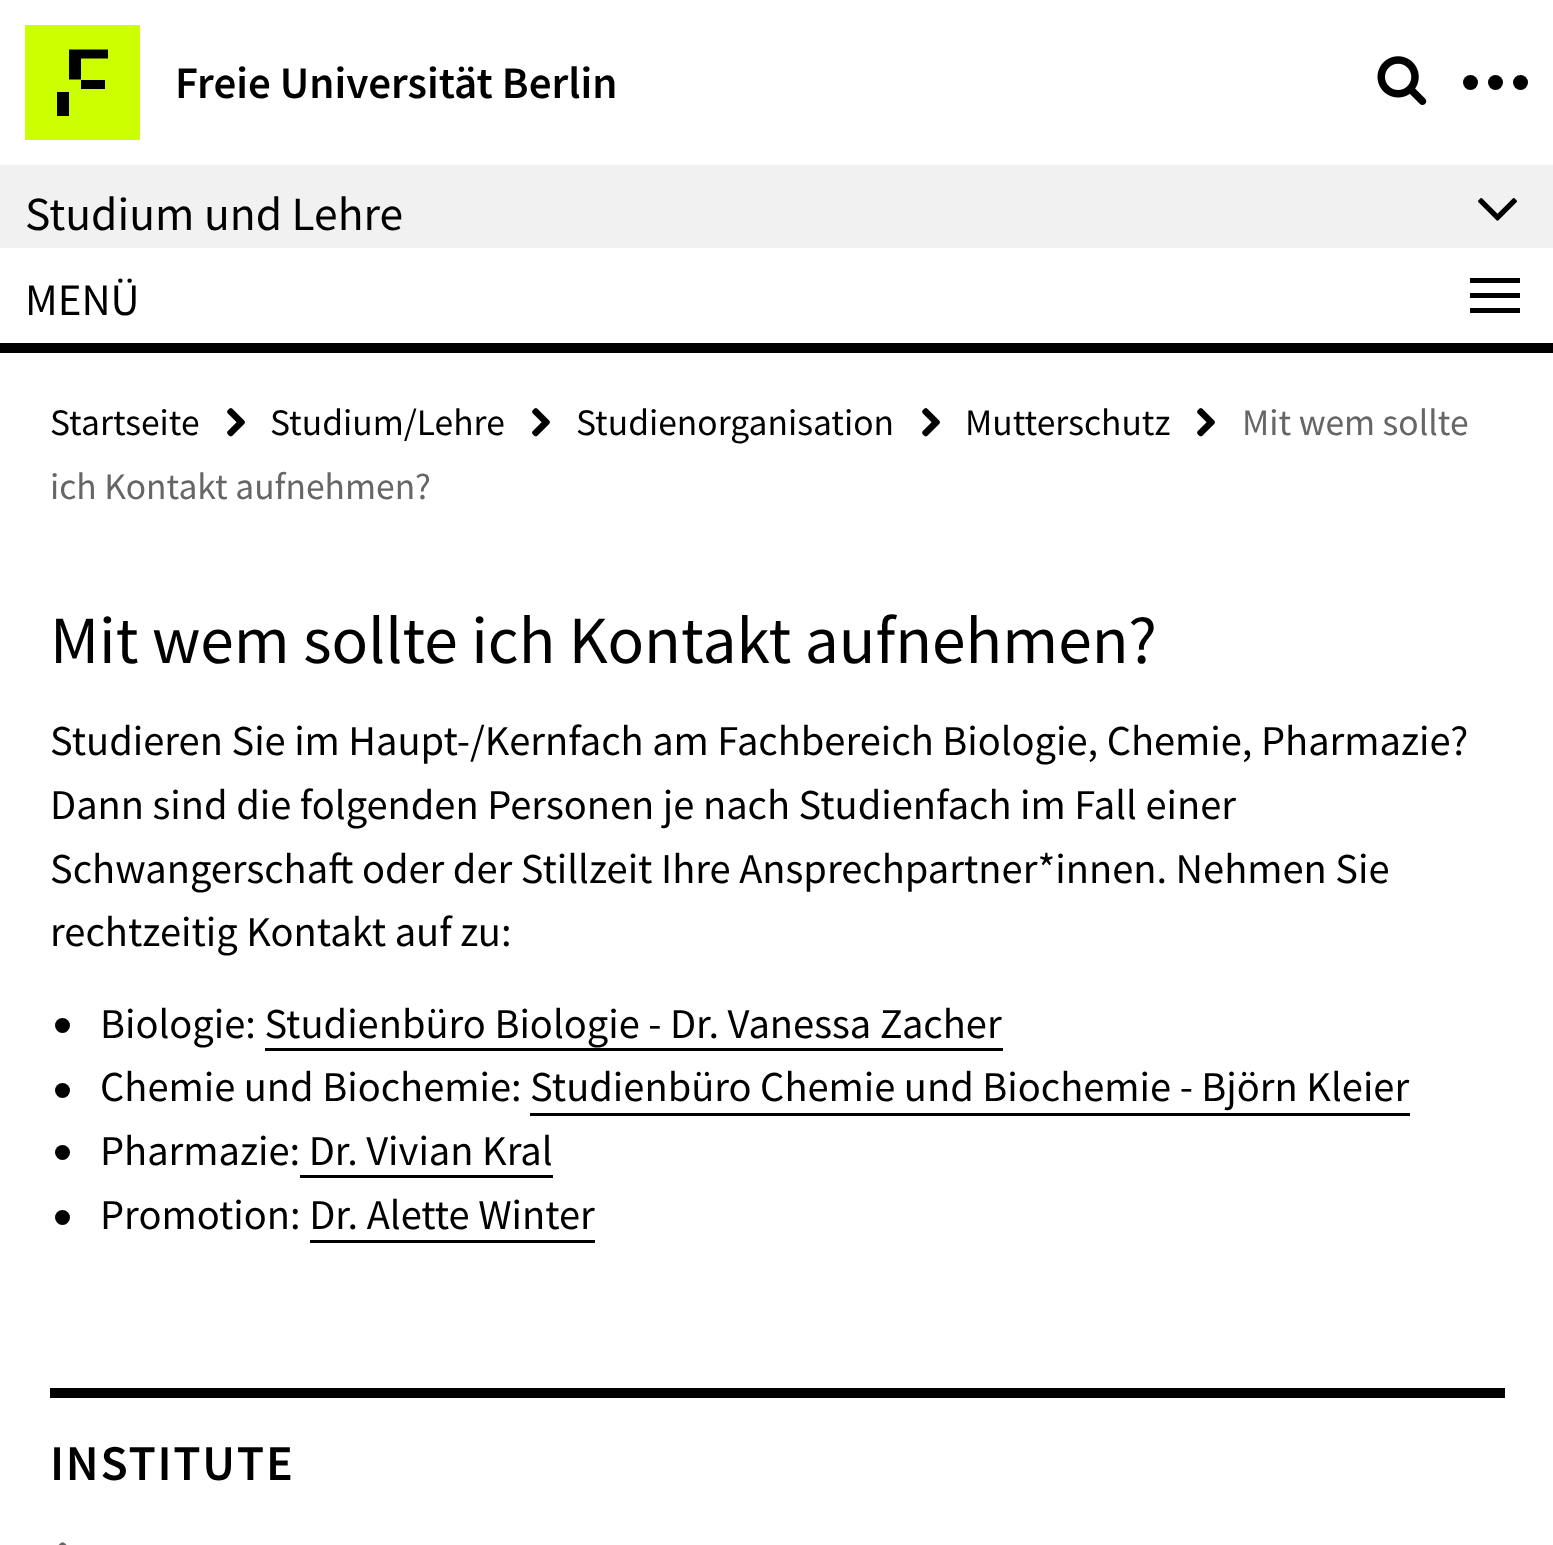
<svg xmlns="http://www.w3.org/2000/svg" width="1553" height="1545" viewBox="0 0 1553 1545">
  <rect width="100%" height="100%" fill="#ffffff"/>
  <rect x="25" y="25" width="115" height="115" fill="#ccff00"/>
  <path d="M69 49.5H108V58.5H81V79.5H69Z" fill="#000000"/>
  <rect x="81" y="80" width="24" height="9" fill="#000000"/>
  <rect x="57" y="92" width="12" height="24" fill="#000000"/>
  <text x="175" y="98" font-family="Source Sans Pro" font-size="45" font-weight="600" fill="#000000">Freie Universität Berlin</text>
  <image x="1377" y="56" width="50" height="49" href="img1.png"/>
  <circle cx="1470.5" cy="82.5" r="7.5" fill="#000000"/>
  <circle cx="1495.5" cy="82.5" r="7.5" fill="#000000"/>
  <circle cx="1520.5" cy="82.5" r="7.5" fill="#000000"/>
  <rect x="0" y="165" width="1553" height="83" fill="#f1f1f1"/>
  <text x="25" y="230" font-family="Source Sans Pro" font-size="47.5" fill="#000000">Studium und Lehre</text>
  <image x="1478" y="198" width="39" height="23" href="img2.png"/>
  <rect x="0" y="343" width="1553" height="10" fill="#000000"/>
  <text x="25" y="315" font-family="Source Sans Pro" font-size="45" fill="#000000">MENÜ</text>
  <rect x="1470" y="278" width="50" height="5" fill="#000000"/>
  <rect x="1470" y="293" width="50" height="5" fill="#000000"/>
  <rect x="1470" y="308" width="50" height="5" fill="#000000"/>
  <text x="50" y="435" font-family="Source Sans Pro" font-size="37.5" fill="#000000">Startseite</text>
  <image x="227" y="408" width="18" height="29" href="img3.png"/>
  <text x="270" y="435" font-family="Source Sans Pro" font-size="37.5" fill="#000000">Studium/Lehre</text>
  <image x="532" y="408" width="18" height="29" href="img3.png"/>
  <text x="576" y="435" font-family="Source Sans Pro" font-size="37.5" fill="#000000">Studienorganisation</text>
  <image x="922" y="408" width="18" height="29" href="img3.png"/>
  <text x="965" y="435" font-family="Source Sans Pro" font-size="37.5" fill="#000000">Mutterschutz</text>
  <image x="1197" y="408" width="18" height="29" href="img3.png"/>
  <text x="1242" y="435" font-family="Source Sans Pro" font-size="37.5" fill="#666666">Mit wem sollte</text>
  <text x="50" y="499" font-family="Source Sans Pro" font-size="37.5" fill="#666666">ich Kontakt aufnehmen?</text>
  <text x="50" y="663" font-family="Source Sans Pro" font-size="67.5" fill="#000000">Mit wem sollte ich Kontakt aufnehmen?</text>
  <text x="50" y="755" font-family="Source Sans Pro" font-size="42.5" fill="#000000">Studieren Sie im Haupt-/Kernfach am Fachbereich Biologie, Chemie, Pharmazie?</text>
  <text x="50" y="819" font-family="Source Sans Pro" font-size="42.5" fill="#000000">Dann sind die folgenden Personen je nach Studienfach im Fall einer</text>
  <text x="50" y="883" font-family="Source Sans Pro" font-size="42.5" fill="#000000">Schwangerschaft oder der Stillzeit Ihre Ansprechpartner*innen. Nehmen Sie</text>
  <text x="50" y="946" font-family="Source Sans Pro" font-size="42.5" fill="#000000">rechtzeitig Kontakt auf zu:</text>
  <circle cx="62.5" cy="1025.5" r="7.5" fill="#000000"/>
  <text x="100" y="1038" font-family="Source Sans Pro" font-size="42.5" fill="#000000">Biologie: Studienbüro Biologie - Dr. Vanessa Zacher</text>
  <rect x="265" y="1048" width="738" height="3" fill="#000000"/>
  <circle cx="62.5" cy="1090.5" r="7.5" fill="#000000"/>
  <text x="100" y="1101" font-family="Source Sans Pro" font-size="42.5" fill="#000000">Chemie und Biochemie: Studienbüro Chemie und Biochemie - Björn Kleier</text>
  <rect x="530" y="1113" width="880" height="3" fill="#000000"/>
  <circle cx="62.5" cy="1152.5" r="7.5" fill="#000000"/>
  <text x="100" y="1165" font-family="Source Sans Pro" font-size="42.5" fill="#000000">Pharmazie: Dr. Vivian Kral</text>
  <rect x="300" y="1175" width="253" height="3" fill="#000000"/>
  <circle cx="62.5" cy="1217.5" r="7.5" fill="#000000"/>
  <text x="100" y="1229" font-family="Source Sans Pro" font-size="42.5" fill="#000000">Promotion: Dr. Alette Winter</text>
  <rect x="310" y="1240" width="285" height="3" fill="#000000"/>
  <rect x="50" y="1388" width="1455" height="10" fill="#000000"/>
  <text x="50" y="1480" font-family="Source Sans Pro" font-size="50" font-weight="600" letter-spacing="1.75" fill="#000000">INSTITUTE</text>
  <image x="58" y="1542" width="9" height="3" href="img4.png"/>
</svg>
